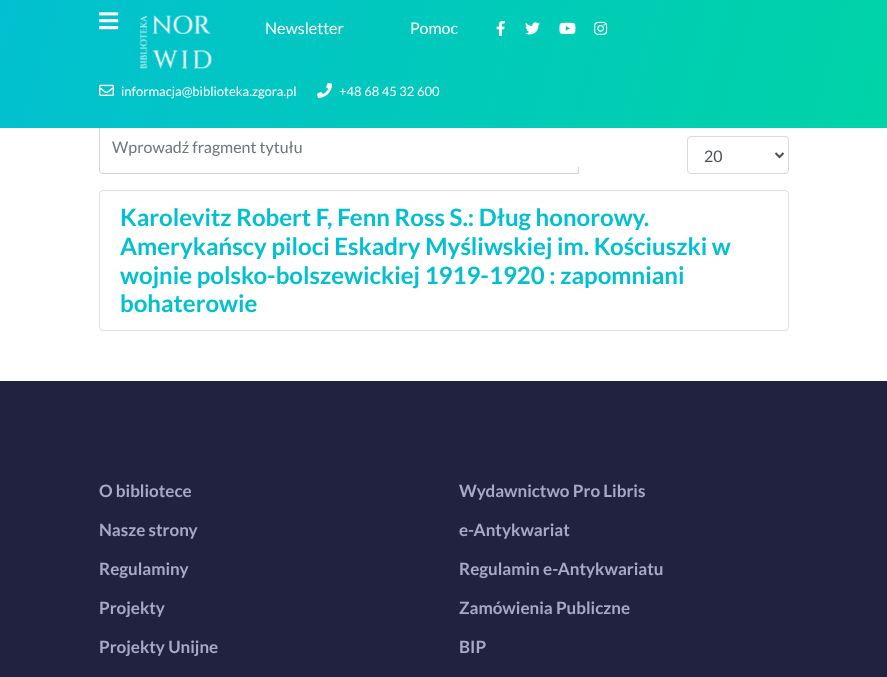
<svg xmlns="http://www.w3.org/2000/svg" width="887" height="677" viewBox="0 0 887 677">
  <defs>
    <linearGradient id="g1" gradientUnits="userSpaceOnUse" x1="870" y1="186" x2="17" y2="-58"><stop offset="0" stop-color="#00d3a7"/><stop offset="1" stop-color="#02c0d0"/></linearGradient>
  </defs>
  <rect width="100%" height="100%" fill="#ffffff"/>
  <path d="M103 120.5H578.5V173.5H103C101 173.5 99.5 172 99.5 170V124C99.5 122 101 120.5 103 120.5Z" fill="none" stroke="#ced4da"/>
  <rect x="578.5" y="120.5" width="56" height="46" fill="none" stroke="#ffffff"/>
  <rect x="0" y="0" width="887" height="128" fill="url(#g1)"/>
  <image x="99" y="12" width="20" height="18" href="img1.png"/>
  <image x="139" y="15" width="74" height="55" href="img2.png"/>
  <text x="265" y="34" font-family="Lato" font-size="16" fill="#ffffff">Newsletter</text>
  <text x="410" y="34" font-family="Lato" font-size="16" fill="#ffffff">Pomoc</text>
  <image x="496" y="20" width="9" height="16" href="img3.png"/>
  <image x="525" y="22" width="15" height="13" href="img4.png"/>
  <image x="559" y="22" width="17" height="12" href="img5.png"/>
  <image x="594" y="21" width="14" height="14" href="img6.png"/>
  <image x="99" y="84" width="15" height="12" href="img7.png"/>
  <text x="121" y="96" font-family="Lato" font-size="13" fill="#ffffff">informacja@biblioteka.zgora.pl</text>
  <image x="317" y="82" width="15" height="16" href="img8.png"/>
  <text x="339" y="96" font-family="Lato" font-size="13" fill="#ffffff">+48 68 45 32 600</text>
  <text x="112" y="153" font-family="Lato" font-size="16" fill="#6c757d">Wprowadź fragment tytułu</text>
  <rect x="687.5" y="136.5" width="101" height="37" rx="3.5" fill="none" stroke="#d9d9d9"/>
  <path d="M775.5 153L779.5 157L783.5 153" fill="none" stroke="#495057" stroke-width="2"/>
  <text x="704" y="162" font-family="Lato" font-size="16" fill="#495057">20</text>
  <rect x="99.5" y="190.5" width="689" height="140" rx="3.5" fill="none" stroke="#dfdfdf"/>
  <text x="120" y="226" font-family="Lato" font-size="24" font-weight="bold" fill="#02c0d0">Karolevitz Robert F, Fenn Ross S.: Dług honorowy.</text>
  <text x="120" y="255" font-family="Lato" font-size="24" font-weight="bold" fill="#02c0d0">Amerykańscy piloci Eskadry Myśliwskiej im. Kościuszki w</text>
  <text x="120" y="284" font-family="Lato" font-size="24" font-weight="bold" fill="#02c0d0">wojnie polsko-bolszewickiej 1919-1920 : zapomniani</text>
  <text x="120" y="312" font-family="Lato" font-size="24" font-weight="bold" fill="#02c0d0">bohaterowie</text>
  <rect x="0" y="381" width="887" height="296" fill="#212240"/>
  <text x="99" y="497" font-family="Lato" font-size="17" font-weight="bold" fill="#a8a9c4">O bibliotece</text>
  <text x="99" y="536" font-family="Lato" font-size="17" font-weight="bold" fill="#a8a9c4">Nasze strony</text>
  <text x="99" y="575" font-family="Lato" font-size="17" font-weight="bold" fill="#a8a9c4">Regulaminy</text>
  <text x="99" y="614" font-family="Lato" font-size="17" font-weight="bold" fill="#a8a9c4">Projekty</text>
  <text x="99" y="653" font-family="Lato" font-size="17" font-weight="bold" fill="#a8a9c4">Projekty Unijne</text>
  <text x="459" y="497" font-family="Lato" font-size="17" font-weight="bold" fill="#a8a9c4">Wydawnictwo Pro Libris</text>
  <text x="459" y="536" font-family="Lato" font-size="17" font-weight="bold" fill="#a8a9c4">e-Antykwariat</text>
  <text x="459" y="575" font-family="Lato" font-size="17" font-weight="bold" fill="#a8a9c4">Regulamin e-Antykwariatu</text>
  <text x="459" y="614" font-family="Lato" font-size="17" font-weight="bold" fill="#a8a9c4">Zamówienia Publiczne</text>
  <text x="459" y="653" font-family="Lato" font-size="17" font-weight="bold" fill="#a8a9c4">BIP</text>
</svg>
